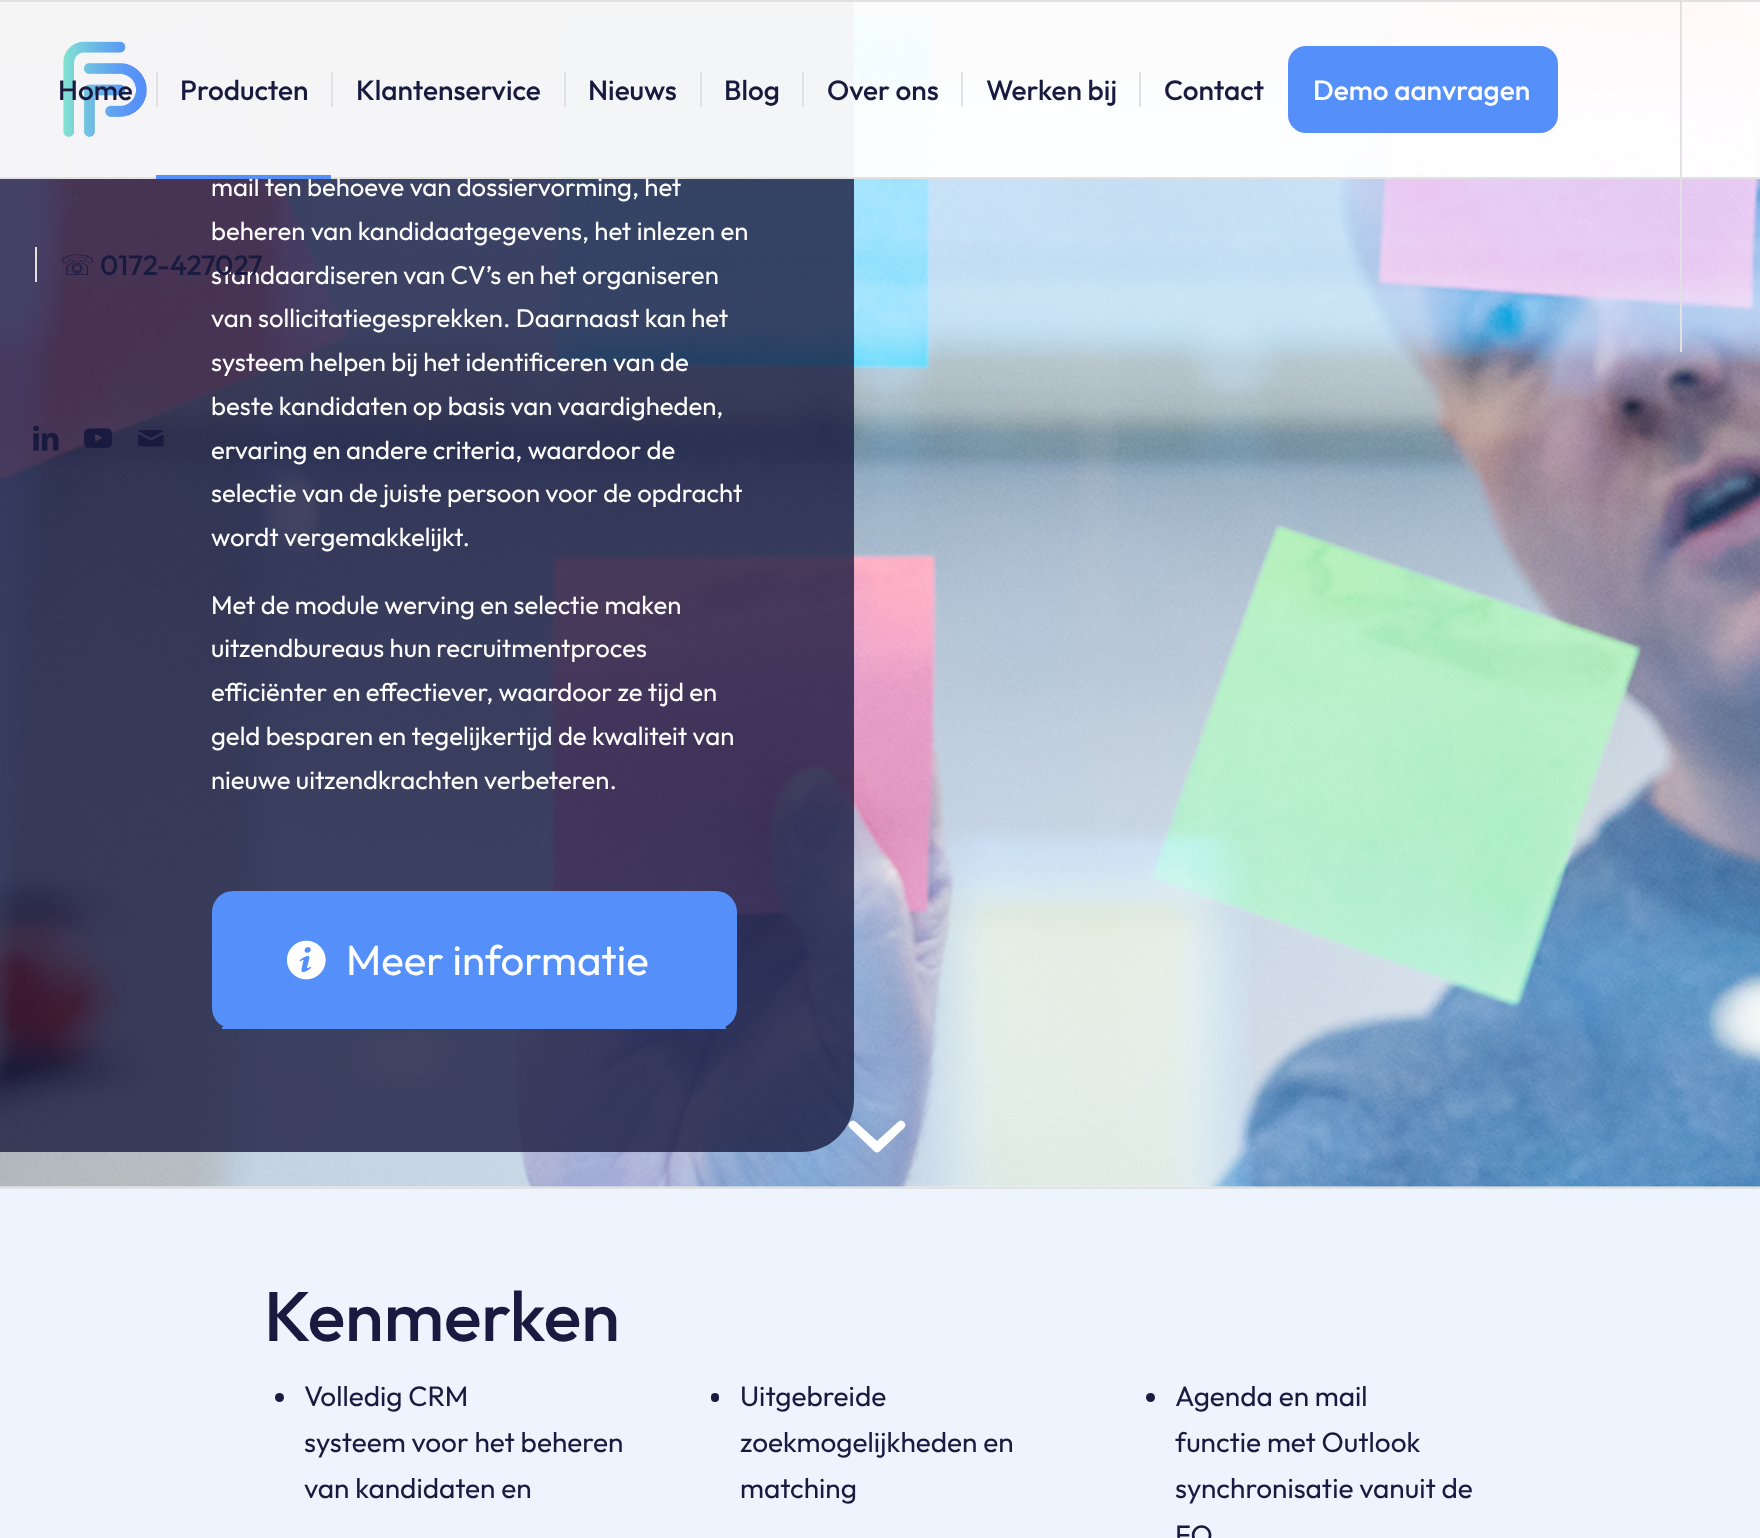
<svg xmlns="http://www.w3.org/2000/svg" width="1760" height="1538" viewBox="0 0 1760 1538">
  <rect width="100%" height="100%" fill="#f2f2f2"/>
  <image x="0" y="2" width="1760" height="1185" href="img5.png"/>
  <path d="M0-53H801C830.5-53 854-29.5 854 0V1099C854 1128.5 830.5 1152 801 1152H0Z" fill="#191a3f" fill-opacity="0.8"/>
  <rect x="0" y="2" width="1760" height="175" fill="#ffffff" fill-opacity="0.95"/>
  <rect x="0" y="0" width="1760" height="2" fill="#e1e1e1"/>
  <text x="211" y="196" font-family="Outfit" font-size="25.7" fill="#ffffff">mail ten behoeve van dossiervorming, het</text>
  <rect x="0" y="177" width="1760" height="2" fill="#e1e1e1"/>
  <image x="63" y="41" width="84" height="96" href="img1.png"/>
  <rect x="1680" y="2" width="2" height="350" fill="#e1e1e1"/>
  <text x="58" y="100" font-family="Outfit" font-size="28" font-weight="500" fill="#191a3f">Home</text>
  <text x="180" y="100" font-family="Outfit" font-size="28" font-weight="500" fill="#191a3f">Producten</text>
  <rect x="156" y="72" width="2" height="35" fill="#e1e1e1"/>
  <rect x="156" y="175" width="175" height="4" fill="#558ffa"/>
  <text x="356" y="100" font-family="Outfit" font-size="28" font-weight="500" fill="#191a3f">Klantenservice</text>
  <rect x="331" y="72" width="2" height="35" fill="#e1e1e1"/>
  <text x="588" y="100" font-family="Outfit" font-size="28" font-weight="500" fill="#191a3f">Nieuws</text>
  <rect x="564" y="72" width="2" height="35" fill="#e1e1e1"/>
  <text x="724" y="100" font-family="Outfit" font-size="28" font-weight="500" fill="#191a3f">Blog</text>
  <rect x="700" y="72" width="2" height="35" fill="#e1e1e1"/>
  <text x="827" y="100" font-family="Outfit" font-size="28" font-weight="500" fill="#191a3f">Over ons</text>
  <rect x="802" y="72" width="2" height="35" fill="#e1e1e1"/>
  <text x="986" y="100" font-family="Outfit" font-size="28" font-weight="500" fill="#191a3f">Werken bij</text>
  <rect x="961" y="72" width="2" height="35" fill="#e1e1e1"/>
  <text x="1164" y="100" font-family="Outfit" font-size="28" font-weight="500" fill="#191a3f">Contact</text>
  <rect x="1139" y="72" width="2" height="35" fill="#e1e1e1"/>
  <rect x="1288" y="46" width="270" height="87" rx="18" fill="#558ffa"/>
  <text x="1313" y="100" font-family="Outfit" font-size="28" font-weight="500" fill="#ffffff">Demo aanvragen</text>
  <text x="60" y="275" font-family="DejaVu Sans" font-size="28" fill="#191a3f">☏</text>
  <rect x="35" y="247" width="2" height="35" fill="#e1e1e1"/>
  <text x="211" y="284" font-family="Outfit" font-size="25.7" fill="#ffffff">standaardiseren van CV’s en het organiseren</text>
  <text x="100" y="275" font-family="Outfit" font-size="28" font-weight="500" fill="#191a3f">0172-427027</text>
  <image x="33" y="425" width="26" height="26" href="img2.png"/>
  <image x="84" y="428" width="28" height="20" href="img3.png"/>
  <image x="138" y="430" width="26" height="17" href="img4.png"/>
  <text x="211" y="240" font-family="Outfit" font-size="25.7" fill="#ffffff">beheren van kandidaatgegevens, het inlezen en</text>
  <text x="211" y="327" font-family="Outfit" font-size="25.7" fill="#ffffff">van sollicitatiegesprekken. Daarnaast kan het</text>
  <text x="211" y="371" font-family="Outfit" font-size="25.7" fill="#ffffff">systeem helpen bij het identificeren van de</text>
  <text x="211" y="415" font-family="Outfit" font-size="25.7" fill="#ffffff">beste kandidaten op basis van vaardigheden,</text>
  <text x="211" y="459" font-family="Outfit" font-size="25.7" fill="#ffffff">ervaring en andere criteria, waardoor de</text>
  <text x="211" y="502" font-family="Outfit" font-size="25.7" fill="#ffffff">selectie van de juiste persoon voor de opdracht</text>
  <text x="211" y="546" font-family="Outfit" font-size="25.7" fill="#ffffff">wordt vergemakkelijkt.</text>
  <text x="211" y="614" font-family="Outfit" font-size="25.7" fill="#ffffff">Met de module werving en selectie maken</text>
  <text x="211" y="657" font-family="Outfit" font-size="25.7" fill="#ffffff">uitzendbureaus hun recruitmentproces</text>
  <text x="211" y="701" font-family="Outfit" font-size="25.7" fill="#ffffff">efficiënter en effectiever, waardoor ze tijd en</text>
  <text x="211" y="745" font-family="Outfit" font-size="25.7" fill="#ffffff">geld besparen en tegelijkertijd de kwaliteit van</text>
  <text x="211" y="789" font-family="Outfit" font-size="25.7" fill="#ffffff">nieuwe uitzendkrachten verbeteren.</text>
  <rect x="212" y="891" width="525" height="138" rx="21" fill="#558ffa"/>
  <rect x="222" y="1027" width="504" height="2" fill="#558ffa"/>
  <image x="286" y="940" width="40" height="40" href="img6.png"/>
  <text x="346" y="975" font-family="Outfit" font-size="42" fill="#ffffff">Meer informatie</text>
  <path d="M898 1122C900 1120 902 1120 904 1122C906 1124 906 1126 904 1128L880 1151C878 1153 876 1153 874 1151L850 1128C848 1126 848 1124 850 1122C852 1120 854 1120 856 1122L877 1141Z" fill="#ffffff"/>
  <rect x="0" y="1189" width="1760" height="349" fill="#eef4fe"/>
  <rect x="0" y="1187" width="1760" height="2" fill="#e1e1e1"/>
  <text x="264" y="1341" font-family="Outfit" font-size="70" font-weight="500" fill="#191a3f">Kenmerken</text>
  <circle cx="279.5" cy="1397.5" r="4.5" fill="#191a3f"/>
  <text x="304" y="1406" font-family="Outfit" font-size="28" fill="#191a3f">Volledig CRM</text>
  <text x="304" y="1452" font-family="Outfit" font-size="28" fill="#191a3f">systeem voor het beheren</text>
  <text x="304" y="1498" font-family="Outfit" font-size="28" fill="#191a3f">van kandidaten en</text>
  <rect x="711" y="1393" width="8" height="9" rx="4" fill="#191a3f"/>
  <text x="740" y="1406" font-family="Outfit" font-size="28" fill="#191a3f">Uitgebreide</text>
  <text x="740" y="1452" font-family="Outfit" font-size="28" fill="#191a3f">zoekmogelijkheden en</text>
  <text x="740" y="1498" font-family="Outfit" font-size="28" fill="#191a3f">matching</text>
  <circle cx="1150.5" cy="1397.5" r="4.5" fill="#191a3f"/>
  <text x="1175" y="1406" font-family="Outfit" font-size="28" fill="#191a3f">Agenda en mail</text>
  <text x="1175" y="1452" font-family="Outfit" font-size="28" fill="#191a3f">functie met Outlook</text>
  <text x="1175" y="1498" font-family="Outfit" font-size="28" fill="#191a3f">synchronisatie vanuit de</text>
  <text x="1175" y="1545" font-family="Outfit" font-size="28" fill="#191a3f">FO</text>
</svg>
